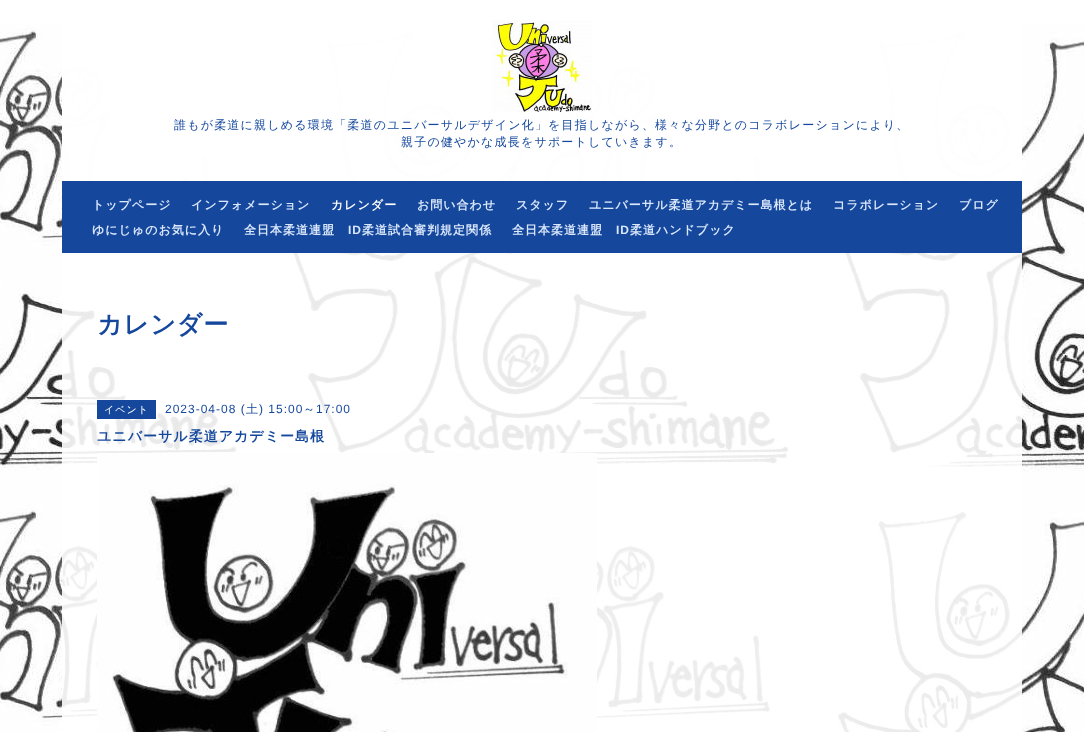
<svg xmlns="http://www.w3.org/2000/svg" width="1084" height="732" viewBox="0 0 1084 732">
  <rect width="100%" height="100%" fill="#ffffff"/>
  <image x="0" y="25" width="1084" height="707" href="img1.png"/>
  <rect x="62" y="25" width="960" height="707" fill="#ffffff" fill-opacity="0.9"/>
  <rect x="62" y="32" width="960" height="149" fill="#ffffff" fill-opacity="0.9"/>
  <image x="492" y="20" width="100" height="92" href="img2.png"/>
  <text x="174" y="129" font-family="WenQuanYi Zen Hei" font-size="12" font-weight="500" letter-spacing="1.2" fill="#15489d">誰もが柔道に親しめる環境「柔道のユニバーサルデザイン化」を目指しながら、様々な分野とのコラボレーションにより、</text>
  <text x="401" y="146" font-family="WenQuanYi Zen Hei" font-size="12" font-weight="500" letter-spacing="1.2" fill="#15489d">親子の健やかな成長をサポートしていきます。</text>
  <rect x="62" y="181" width="960" height="72" fill="#15489d"/>
  <text x="92" y="209" font-family="WenQuanYi Zen Hei" font-size="12" font-weight="bold" letter-spacing="1" fill="#dbe8fc">トップページ</text>
  <text x="191" y="209" font-family="WenQuanYi Zen Hei" font-size="12" font-weight="bold" letter-spacing="1" fill="#dbe8fc">インフォメーション</text>
  <text x="331" y="209" font-family="WenQuanYi Zen Hei" font-size="12" font-weight="bold" letter-spacing="1" fill="#ffffff">カレンダー</text>
  <text x="417" y="209" font-family="WenQuanYi Zen Hei" font-size="12" font-weight="bold" letter-spacing="1" fill="#dbe8fc">お問い合わせ</text>
  <text x="516" y="209" font-family="WenQuanYi Zen Hei" font-size="12" font-weight="bold" letter-spacing="1" fill="#dbe8fc">スタッフ</text>
  <text x="589" y="209" font-family="WenQuanYi Zen Hei" font-size="12" font-weight="bold" letter-spacing="1" fill="#dbe8fc">ユニバーサル柔道アカデミー島根とは</text>
  <text x="833" y="209" font-family="WenQuanYi Zen Hei" font-size="12" font-weight="bold" letter-spacing="1" fill="#dbe8fc">コラボレーション</text>
  <text x="959" y="209" font-family="WenQuanYi Zen Hei" font-size="12" font-weight="bold" letter-spacing="1" fill="#dbe8fc">ブログ</text>
  <text x="92" y="234" font-family="WenQuanYi Zen Hei" font-size="12" font-weight="bold" letter-spacing="1" fill="#dbe8fc">ゆにじゅのお気に入り</text>
  <text x="244" y="234" font-family="WenQuanYi Zen Hei" font-size="12" font-weight="bold" letter-spacing="1" fill="#dbe8fc">全日本柔道連盟</text>
  <text x="348" y="234" font-family="Liberation Sans" font-size="12" font-weight="bold" letter-spacing="1" fill="#dbe8fc">ID</text>
  <text x="362" y="234" font-family="WenQuanYi Zen Hei" font-size="12" font-weight="bold" letter-spacing="1" fill="#dbe8fc">柔道試合審判規定関係</text>
  <text x="512" y="234" font-family="WenQuanYi Zen Hei" font-size="12" font-weight="bold" letter-spacing="1" fill="#dbe8fc">全日本柔道連盟</text>
  <text x="616" y="234" font-family="Liberation Sans" font-size="12" font-weight="bold" letter-spacing="1" fill="#dbe8fc">ID</text>
  <text x="630" y="234" font-family="WenQuanYi Zen Hei" font-size="12" font-weight="bold" letter-spacing="1" fill="#dbe8fc">柔道ハンドブック</text>
  <text x="97" y="333" font-family="WenQuanYi Zen Hei" font-size="25" font-weight="bold" letter-spacing="1" fill="#15489d">カレンダー</text>
  <rect x="97" y="400" width="59" height="19" fill="#15489d"/>
  <text x="104" y="413" font-family="WenQuanYi Zen Hei" font-size="10" font-weight="500" letter-spacing="1" fill="#ffffff">イベント</text>
  <text x="165" y="413" font-family="Liberation Sans" font-size="12" letter-spacing="1" fill="#15489d">2023-04-08 (</text>
  <text x="246" y="413" font-family="WenQuanYi Zen Hei" font-size="12" font-weight="500" letter-spacing="1" fill="#15489d">土</text>
  <text x="259" y="413" font-family="Liberation Sans" font-size="12" letter-spacing="1" fill="#15489d">) 15:00</text>
  <text x="303" y="413" font-family="WenQuanYi Zen Hei" font-size="12" font-weight="500" letter-spacing="1" fill="#15489d">～</text>
  <text x="316" y="413" font-family="Liberation Sans" font-size="12" letter-spacing="1" fill="#15489d">17:00</text>
  <text x="97" y="441" font-family="WenQuanYi Zen Hei" font-size="14" font-weight="bold" letter-spacing="1" fill="#15489d">ユニバーサル柔道アカデミー島根</text>
  <image x="97" y="453" width="500" height="279" href="img3.png"/>
</svg>
